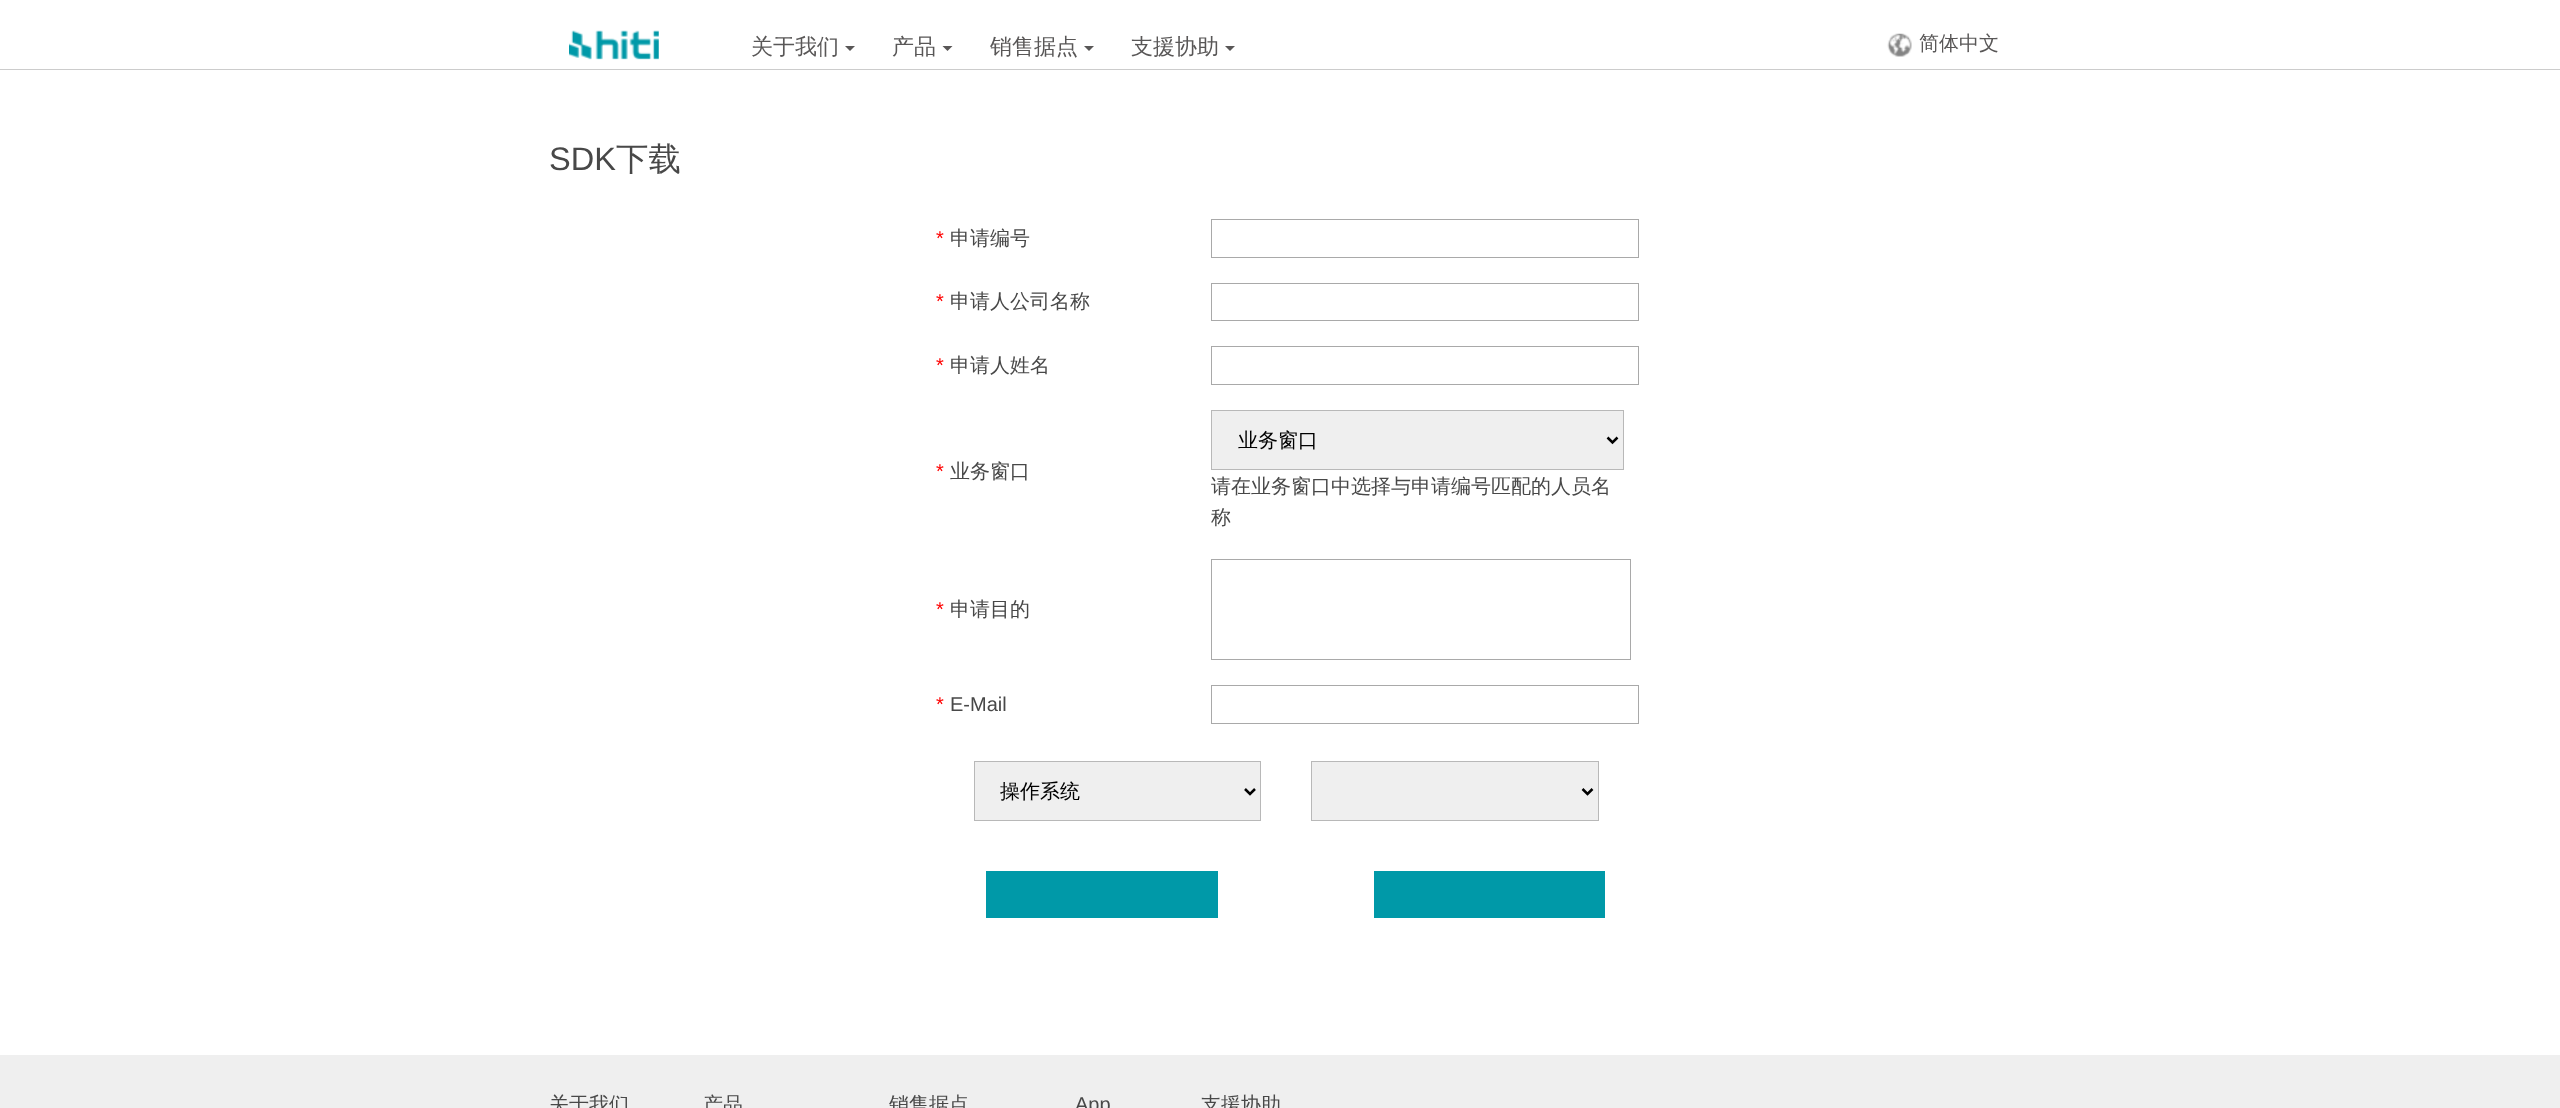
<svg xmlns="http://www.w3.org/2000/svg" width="2560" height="1108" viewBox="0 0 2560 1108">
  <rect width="100%" height="100%" fill="#ffffff"/>
  <rect x="0" y="69" width="2560" height="1" fill="#cccccc"/>
  <image x="569" y="30" width="90" height="30" href="img1.png"/>
  <text x="751" y="54" font-family="WenQuanYi Zen Hei" font-size="22" font-weight="500" fill="#595757">关于我们</text>
  <path d="M845 46H855L850 51Z" fill="#595757"/>
  <text x="892" y="54" font-family="WenQuanYi Zen Hei" font-size="22" font-weight="500" fill="#595757">产品</text>
  <path d="M942.5 46H952.5L947.5 51Z" fill="#595757"/>
  <text x="990" y="54" font-family="WenQuanYi Zen Hei" font-size="22" font-weight="500" fill="#595757">销售据点</text>
  <path d="M1084 46H1094L1089 51Z" fill="#595757"/>
  <text x="1131" y="54" font-family="WenQuanYi Zen Hei" font-size="22" font-weight="500" fill="#595757">支援协助</text>
  <path d="M1225 46H1235L1230 51Z" fill="#595757"/>
  <image x="1887" y="33" width="25" height="24" href="img2.png"/>
  <text x="1919" y="50" font-family="WenQuanYi Zen Hei" font-size="20" font-weight="500" fill="#595757">简体中文</text>
  <text x="549" y="170" font-family="Liberation Sans" font-size="32.5" fill="#484848">SDK</text>
  <text x="616" y="170" font-family="WenQuanYi Zen Hei" font-size="32.5" font-weight="500" fill="#484848">下载</text>
  <text x="936" y="245" font-family="Liberation Sans" font-size="20" fill="#ff0000">*</text>
  <text x="950" y="245" font-family="WenQuanYi Zen Hei" font-size="20" font-weight="500" fill="#484848">申请编号</text>
  <rect x="1211.5" y="219.5" width="427" height="38" fill="none" stroke="#a9a9a9"/>
  <text x="936" y="308" font-family="Liberation Sans" font-size="20" fill="#ff0000">*</text>
  <text x="950" y="308" font-family="WenQuanYi Zen Hei" font-size="20" font-weight="500" fill="#484848">申请人公司名称</text>
  <rect x="1211.5" y="283.5" width="427" height="37" fill="none" stroke="#a9a9a9"/>
  <text x="936" y="372" font-family="Liberation Sans" font-size="20" fill="#ff0000">*</text>
  <text x="950" y="372" font-family="WenQuanYi Zen Hei" font-size="20" font-weight="500" fill="#484848">申请人姓名</text>
  <rect x="1211.5" y="346.5" width="427" height="38" fill="none" stroke="#a9a9a9"/>
  <text x="936" y="478" font-family="Liberation Sans" font-size="20" fill="#ff0000">*</text>
  <text x="950" y="478" font-family="WenQuanYi Zen Hei" font-size="20" font-weight="500" fill="#484848">业务窗口</text>
  <rect x="1211.5" y="410.5" width="412" height="59" fill="#efefef" stroke="#b8b8b8"/>
  <path d="M1607.5 437.5L1612.5 442.5L1617.5 437.5" fill="none" stroke="#000000" stroke-width="2.5"/>
  <text x="1238" y="447" font-family="WenQuanYi Zen Hei" font-size="20" font-weight="500" fill="#000000">业务窗口</text>
  <text x="1211" y="493" font-family="WenQuanYi Zen Hei" font-size="20" font-weight="500" fill="#484848">请在业务窗口中选择与申请编号匹配的人员名</text>
  <text x="1211" y="524" font-family="WenQuanYi Zen Hei" font-size="20" font-weight="500" fill="#484848">称</text>
  <text x="936" y="616" font-family="Liberation Sans" font-size="20" fill="#ff0000">*</text>
  <text x="950" y="616" font-family="WenQuanYi Zen Hei" font-size="20" font-weight="500" fill="#484848">申请目的</text>
  <rect x="1211.5" y="559.5" width="419" height="100" fill="none" stroke="#a9a9a9"/>
  <text x="936" y="711" font-family="Liberation Sans" font-size="20" fill="#ff0000">*</text>
  <text x="950" y="711" font-family="Liberation Sans" font-size="20" fill="#484848">E-Mail</text>
  <rect x="1211.5" y="685.5" width="427" height="38" fill="none" stroke="#a9a9a9"/>
  <rect x="974.5" y="761.5" width="286" height="59" fill="#efefef" stroke="#b8b8b8"/>
  <path d="M1245 789L1250 794L1255 789" fill="none" stroke="#000000" stroke-width="2.5"/>
  <text x="1000" y="798" font-family="WenQuanYi Zen Hei" font-size="20" font-weight="500" fill="#000000">操作系统</text>
  <rect x="1311.5" y="761.5" width="287" height="59" fill="#efefef" stroke="#b8b8b8"/>
  <path d="M1582.5 789L1587.5 794L1592.5 789" fill="none" stroke="#000000" stroke-width="2.5"/>
  <rect x="986" y="871" width="232" height="47" fill="#0099a8"/>
  <rect x="1374" y="871" width="231" height="47" fill="#0099a8"/>
  <rect x="0" y="1055" width="2560" height="53" fill="#efefef"/>
  <text x="549" y="1111" font-family="WenQuanYi Zen Hei" font-size="20" font-weight="500" fill="#484848">关于我们</text>
  <text x="703" y="1111" font-family="WenQuanYi Zen Hei" font-size="20" font-weight="500" fill="#484848">产品</text>
  <text x="889" y="1111" font-family="WenQuanYi Zen Hei" font-size="20" font-weight="500" fill="#484848">销售据点</text>
  <text x="1075" y="1111" font-family="Liberation Sans" font-size="20" fill="#484848">App</text>
  <text x="1201" y="1111" font-family="WenQuanYi Zen Hei" font-size="20" font-weight="500" fill="#484848">支援协助</text>
</svg>
